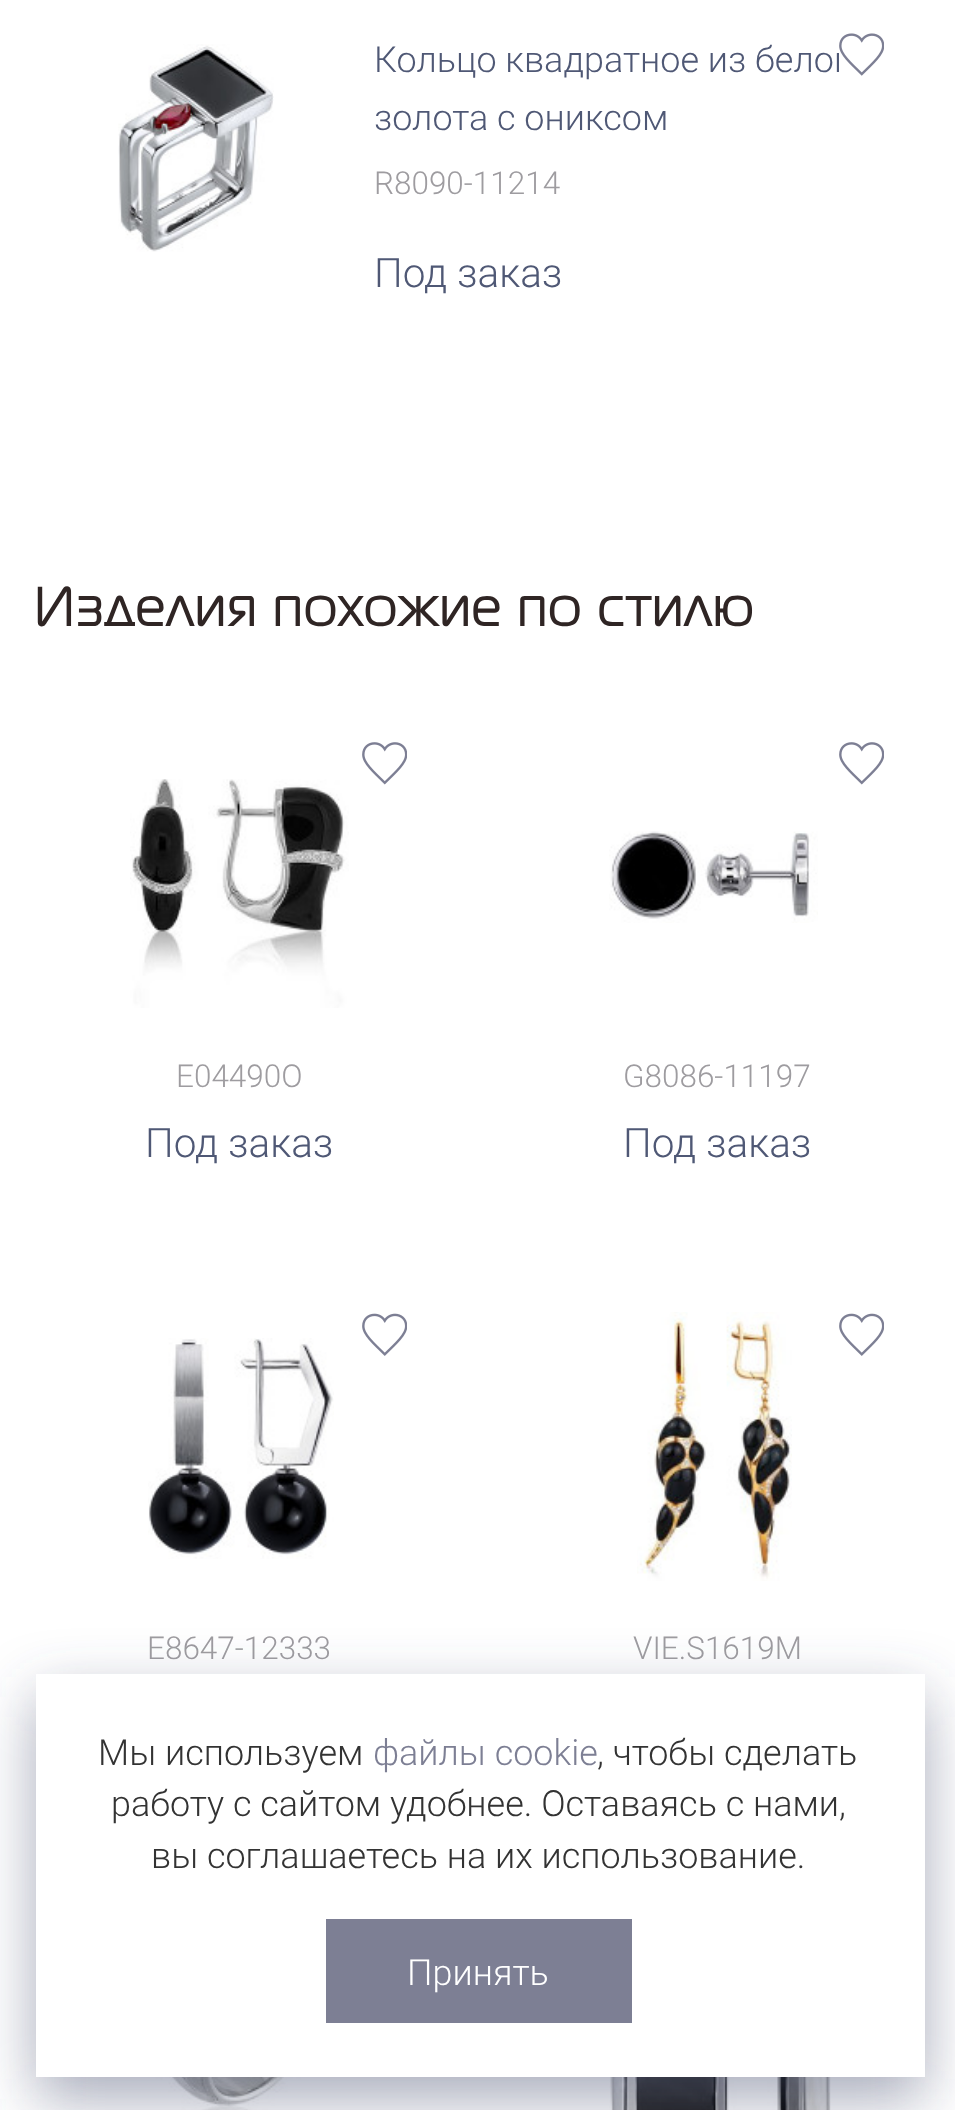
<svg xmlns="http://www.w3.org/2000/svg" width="955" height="2110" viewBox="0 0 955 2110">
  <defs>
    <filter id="blur1" x="-50%" y="-200%" width="200%" height="500%"><feGaussianBlur stdDeviation="30.5"/></filter>
  </defs>
  <rect width="100%" height="100%" fill="#ffffff"/>
  <image x="118" y="44" width="156" height="208" href="img1.png"/>
  <text x="374" y="72" font-family="Roboto" font-size="36" font-weight="300" fill="#4f5875">Кольцо квадратное из белог</text>
  <text x="374" y="130" font-family="Roboto" font-size="36" font-weight="300" fill="#4f5875">золота с ониксом</text>
  <text x="374" y="194" font-family="Roboto" font-size="31.5" font-weight="300" fill="#9e9ca0">R8090-11214</text>
  <text x="374" y="287" font-family="Roboto" font-size="40.5" font-weight="300" fill="#4f5875">Под заказ</text>
  <rect x="839" y="53" width="10" height="19" fill="#ffffff"/>
  <image x="839" y="33" width="45" height="43" href="img2.png"/>
  <text x="34" y="626" font-family="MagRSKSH" font-size="54" font-weight="bold" letter-spacing="2.7" fill="#2f2524">Изделия похожие по стилю</text>
  <image x="362" y="742" width="45" height="43" href="img3.png"/>
  <image x="130" y="779" width="219" height="229" href="img4.png"/>
  <text x="176" y="1087" font-family="Roboto" font-size="31.5" font-weight="300" fill="#9e9ca0">E04490O</text>
  <text x="145" y="1157" font-family="Roboto" font-size="40.5" font-weight="300" fill="#4f5875">Под заказ</text>
  <image x="839" y="742" width="45" height="43" href="img3.png"/>
  <image x="609" y="831" width="209" height="92" href="img5.png"/>
  <text x="623" y="1087" font-family="Roboto" font-size="31.5" font-weight="300" fill="#9e9ca0">G8086-11197</text>
  <text x="623" y="1157" font-family="Roboto" font-size="40.5" font-weight="300" fill="#4f5875">Под заказ</text>
  <image x="148" y="1338" width="186" height="221" href="img6.png"/>
  <image x="362" y="1313" width="45" height="43" href="img7.png"/>
  <text x="147" y="1659" font-family="Roboto" font-size="31.5" font-weight="300" fill="#9e9ca0">E8647-12333</text>
  <image x="637" y="1312" width="155" height="269" href="img8.png"/>
  <image x="839" y="1313" width="45" height="43" href="img7.png"/>
  <text x="633" y="1659" font-family="Roboto" font-size="31.5" font-weight="300" fill="#9e9ca0">VIE.S1619M</text>
  <image x="155" y="2077" width="185" height="33" href="img9.png"/>
  <image x="609" y="2077" width="222" height="33" href="img10.png"/>
  <rect x="36" y="1697" width="889" height="402" fill="#4f5875" fill-opacity="0.5" filter="url(#blur1)"/>
  <rect x="36" y="1674" width="889" height="403" fill="#ffffff"/>
  <text x="98" y="1765" font-family="Roboto" font-size="36" font-weight="300" fill="#333333">Мы используем</text>
  <text x="373" y="1765" font-family="Roboto" font-size="36" font-weight="300" fill="#7d7f94">файлы cookie</text>
  <text x="597" y="1765" font-family="Roboto" font-size="36" font-weight="300" fill="#333333">, чтобы сделать</text>
  <text x="111" y="1816" font-family="Roboto" font-size="36" font-weight="300" fill="#333333">работу с сайтом удобнее. Оставаясь с нами,</text>
  <text x="151" y="1868" font-family="Roboto" font-size="36" font-weight="300" fill="#333333">вы соглашаетесь на их использование.</text>
  <rect x="326" y="1919" width="306" height="104" fill="#7d7f94"/>
  <text x="407" y="1985" font-family="Roboto" font-size="36" font-weight="300" fill="#ffffff">Принять</text>
</svg>
